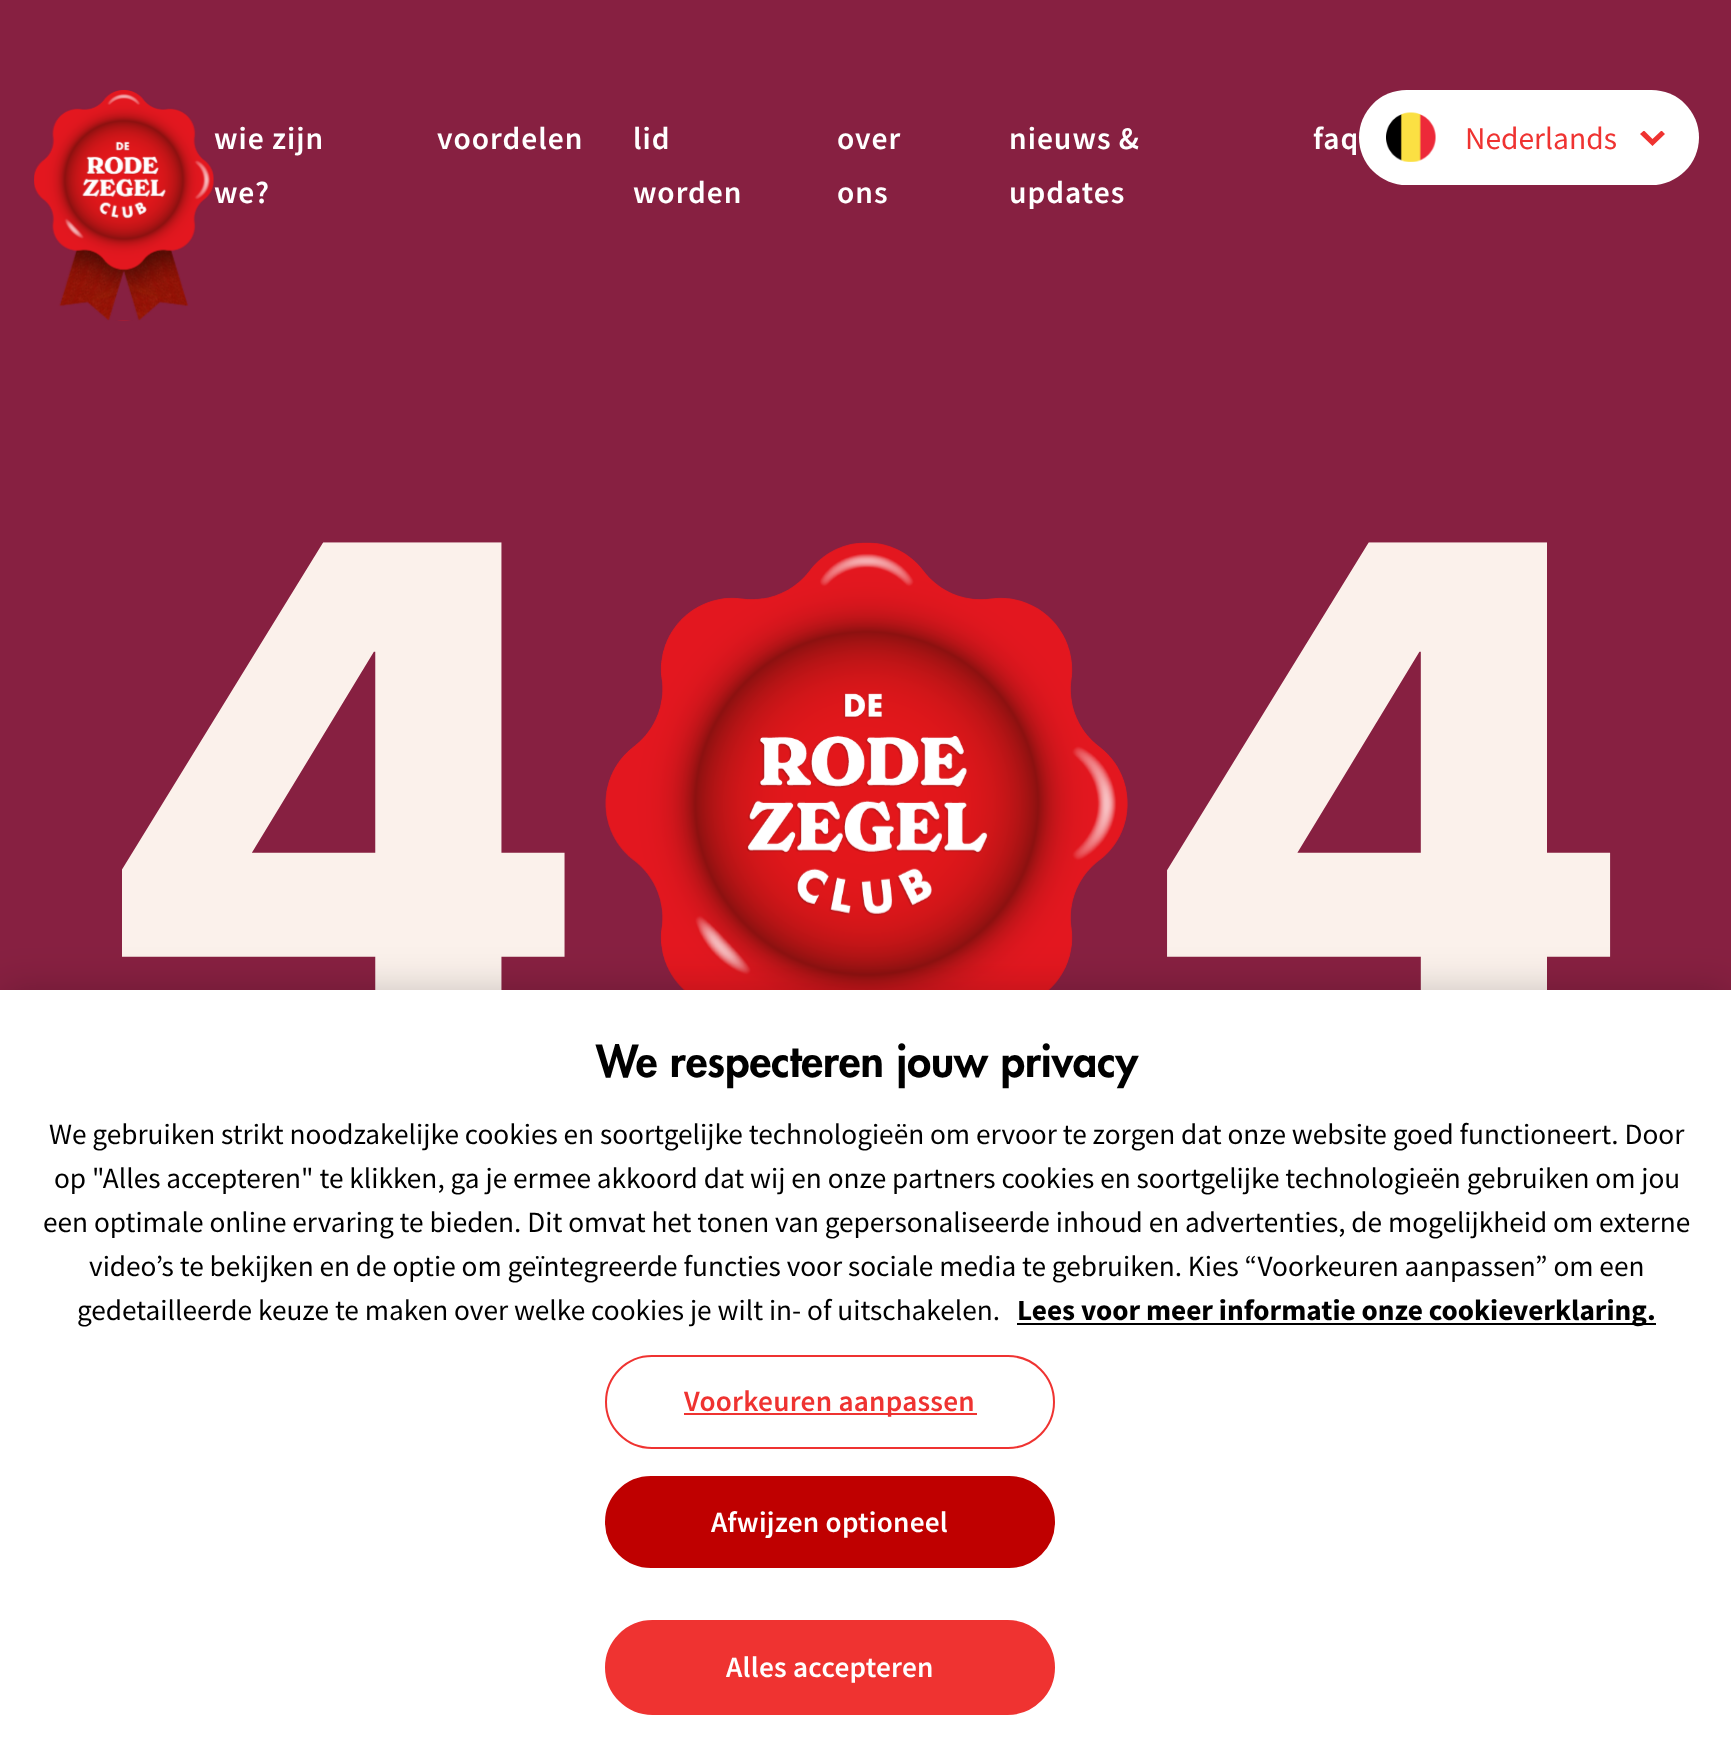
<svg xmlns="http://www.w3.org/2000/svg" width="1731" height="1749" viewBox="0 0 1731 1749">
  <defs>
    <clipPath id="clip1"><rect x="1640" y="131" width="25" height="15"/></clipPath>
    <filter id="blur1" x="-50%" y="-200%" width="200%" height="500%"><feGaussianBlur stdDeviation="20"/></filter>
  </defs>
  <rect width="100%" height="100%" fill="#872041"/>
  <image x="34" y="90" width="180" height="231" href="img1.png"/>
  <text x="214" y="149" font-family="Source Sans Pro" font-size="31.5" font-weight="600" letter-spacing="1" fill="#ffffff">wie zijn</text>
  <text x="214" y="203" font-family="Source Sans Pro" font-size="31.5" font-weight="600" letter-spacing="1" fill="#ffffff">we?</text>
  <text x="437" y="149" font-family="Source Sans Pro" font-size="31.5" font-weight="600" letter-spacing="1" fill="#ffffff">voordelen</text>
  <text x="633" y="149" font-family="Source Sans Pro" font-size="31.5" font-weight="600" letter-spacing="1" fill="#ffffff">lid</text>
  <text x="633" y="203" font-family="Source Sans Pro" font-size="31.5" font-weight="600" letter-spacing="1" fill="#ffffff">worden</text>
  <text x="837" y="149" font-family="Source Sans Pro" font-size="31.5" font-weight="600" letter-spacing="1" fill="#ffffff">over</text>
  <text x="837" y="203" font-family="Source Sans Pro" font-size="31.5" font-weight="600" letter-spacing="1" fill="#ffffff">ons</text>
  <text x="1009" y="149" font-family="Source Sans Pro" font-size="31.5" font-weight="600" letter-spacing="1" fill="#ffffff">nieuws &amp;</text>
  <text x="1009" y="203" font-family="Source Sans Pro" font-size="31.5" font-weight="600" letter-spacing="1" fill="#ffffff">updates</text>
  <text x="1313" y="149" font-family="Source Sans Pro" font-size="31.5" font-weight="600" letter-spacing="1" fill="#ffffff">faq</text>
  <rect x="1359" y="90" width="340" height="95" rx="47.5" fill="#ffffff"/>
  <image x="1386" y="112" width="50" height="50" href="img2.png"/>
  <text x="1465" y="149" font-family="Source Sans Pro" font-size="31.5" fill="#ef3331">Nederlands</text>
  <g clip-path="url(#clip1)">
    <path d="M1652.5 146L1665 134L1661.5 130.5L1652.5 139L1644 130.5L1640 134Z" fill="#ef3331"/>
  </g>
  <image x="122" y="542" width="1489" height="448" href="img3.png"/>
  <rect x="0" y="990" width="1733" height="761" fill="#000000" fill-opacity="0.2" filter="url(#blur1)"/>
  <rect x="0" y="990" width="1731" height="759" fill="#ffffff"/>
  <text x="596" y="1077" font-family="Futura" font-size="43.25" font-weight="900" fill="#000000">We respecteren jouw privacy</text>
  <text x="49" y="1144" font-family="Source Sans Pro" font-size="29.27" fill="#000000">We gebruiken strikt noodzakelijke cookies en soortgelijke technologieën om ervoor te zorgen dat onze website goed functioneert. Door</text>
  <text x="54" y="1188" font-family="Source Sans Pro" font-size="29.27" fill="#000000">op "Alles accepteren" te klikken, ga je ermee akkoord dat wij en onze partners cookies en soortgelijke technologieën gebruiken om jou</text>
  <text x="43" y="1232" font-family="Source Sans Pro" font-size="29.27" fill="#000000">een optimale online ervaring te bieden. Dit omvat het tonen van gepersonaliseerde inhoud en advertenties, de mogelijkheid om externe</text>
  <text x="89" y="1276" font-family="Source Sans Pro" font-size="29.27" fill="#000000">video’s te bekijken en de optie om geïntegreerde functies voor sociale media te gebruiken. Kies “Voorkeuren aanpassen” om een</text>
  <text x="77" y="1320" font-family="Source Sans Pro" font-size="29.27" fill="#000000">gedetailleerde keuze te maken over welke cookies je wilt in- of uitschakelen.</text>
  <rect x="1017" y="1323" width="639" height="2" fill="#000000"/>
  <text x="1017" y="1320" font-family="Source Sans Pro" font-size="29.27" font-weight="bold" fill="#000000">Lees voor meer informatie onze cookieverklaring.</text>
  <rect x="606" y="1356" width="448" height="92" rx="46" fill="none" stroke="#ef3331" stroke-width="2"/>
  <rect x="684" y="1413" width="293" height="2" fill="#ef3331"/>
  <text x="684" y="1411" font-family="Source Sans Pro" font-size="29.27" font-weight="600" letter-spacing="0.25" fill="#ef3331">Voorkeuren aanpassen</text>
  <rect x="606" y="1477" width="448" height="90" rx="45" fill="#bf0000" stroke="#bf0000" stroke-width="2"/>
  <text x="711" y="1532" font-family="Source Sans Pro" font-size="29.27" font-weight="600" letter-spacing="0.25" fill="#ffffff">Afwijzen optioneel</text>
  <rect x="606" y="1621" width="448" height="93" rx="46.5" fill="#ef3331" stroke="#ef3331" stroke-width="2"/>
  <text x="726" y="1677" font-family="Source Sans Pro" font-size="29.27" font-weight="600" letter-spacing="0.25" fill="#ffffff">Alles accepteren</text>
</svg>
